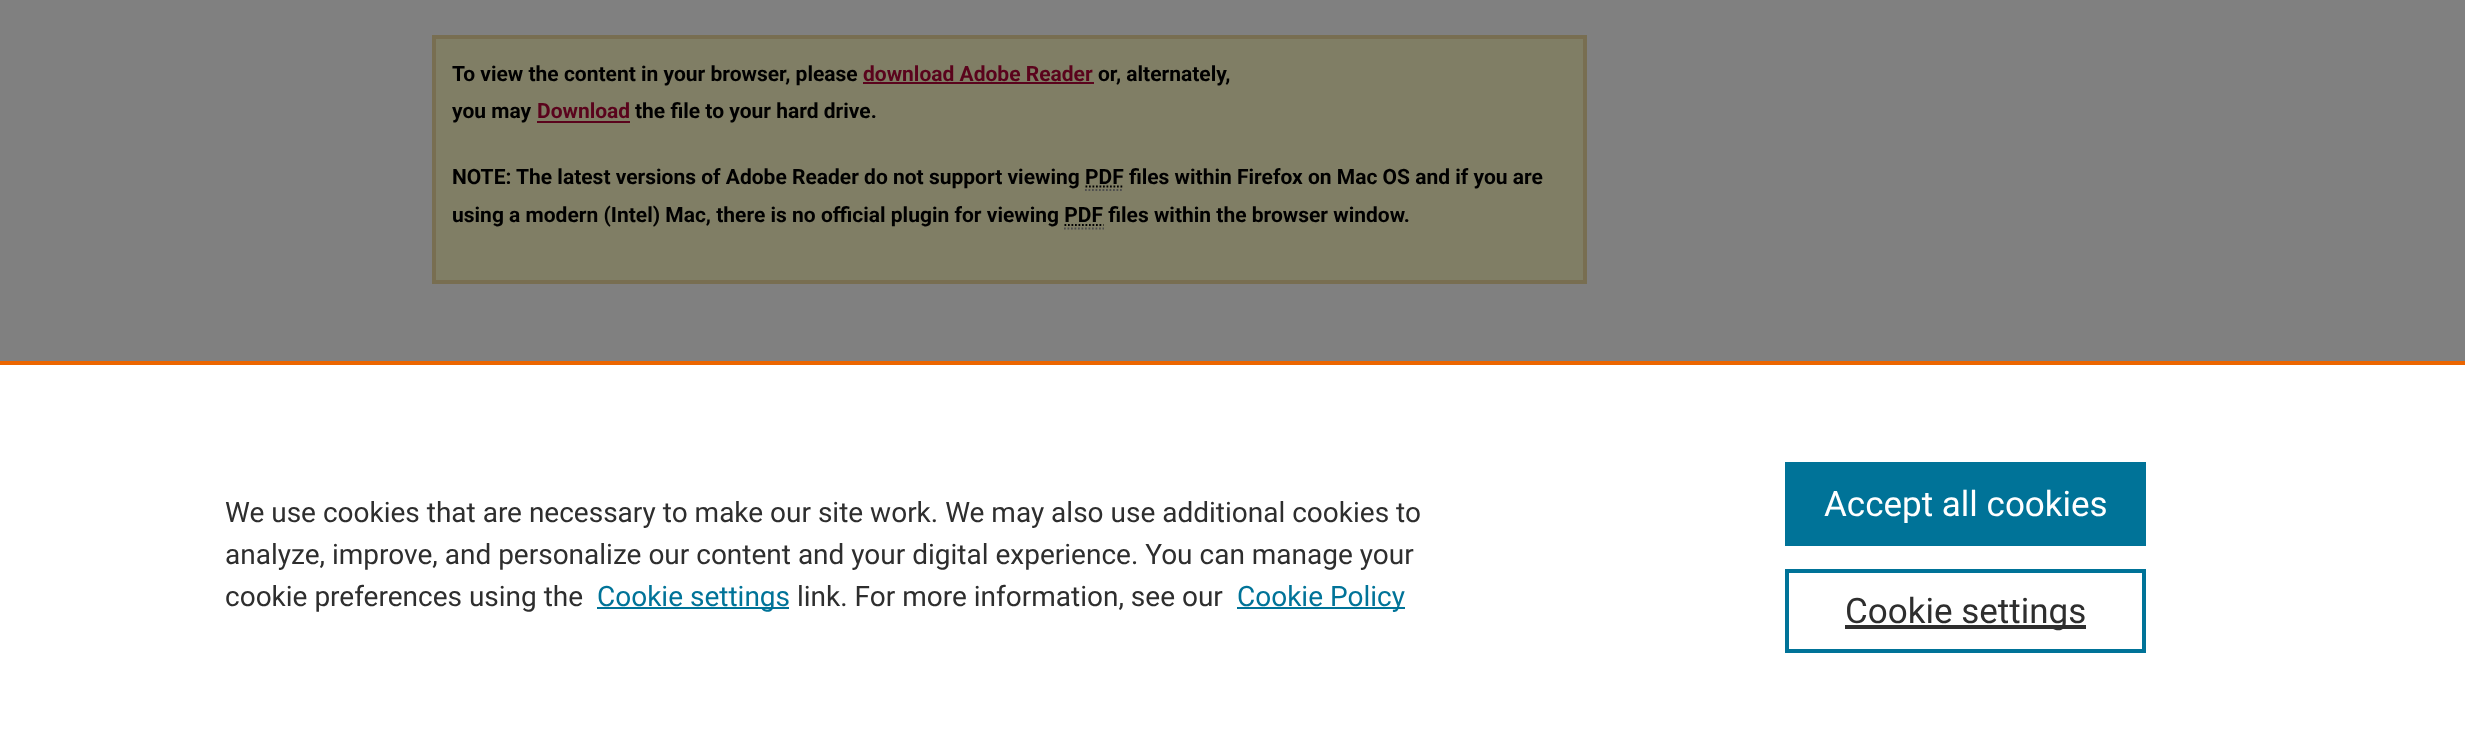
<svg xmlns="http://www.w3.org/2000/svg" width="2465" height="744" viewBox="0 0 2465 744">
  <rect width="100%" height="100%" fill="#808080"/>
  <rect x="434" y="37" width="1151" height="245" fill="#807e65" stroke="#786e51" stroke-width="4"/>
  <text x="452" y="81" font-family="Roboto" font-size="21" font-weight="bold" fill="#000000">To view the content in your browser, please</text>
  <text x="863" y="81" font-family="Roboto" font-size="21" font-weight="bold" fill="#5a031c">download Adobe Reader</text>
  <rect x="863" y="82" width="231" height="2" fill="#5a031c"/>
  <text x="1098" y="81" font-family="Roboto" font-size="21" font-weight="bold" fill="#000000">or, alternately,</text>
  <text x="452" y="118" font-family="Roboto" font-size="21" font-weight="bold" fill="#000000">you may</text>
  <text x="537" y="118" font-family="Roboto" font-size="21" font-weight="bold" fill="#5a031c">Download</text>
  <rect x="537" y="121" width="93" height="2" fill="#5a031c"/>
  <text x="635" y="118" font-family="Roboto" font-size="21" font-weight="bold" fill="#000000">the file to your hard drive.</text>
  <text x="452" y="184" font-family="Roboto" font-size="21" font-weight="bold" fill="#000000">NOTE: The latest versions of Adobe Reader do not support viewing PDF files within Firefox on Mac OS and if you are</text>
  <path d="M1085.5 186.5H1124" fill="none" stroke="#000000" stroke-width="1.8" stroke-dasharray="1.75 1.75"/>
  <path d="M1085 190H1123.5" fill="none" stroke="#4d4d4d" stroke-width="1.8" stroke-dasharray="1.75 1.75"/>
  <text x="452" y="222" font-family="Roboto" font-size="21" font-weight="bold" fill="#000000">using a modern (Intel) Mac, there is no official plugin for viewing PDF files within the browser window.</text>
  <path d="M1064.5 225H1103.5" fill="none" stroke="#000000" stroke-width="1.8" stroke-dasharray="1.75 1.75"/>
  <path d="M1064 228.5H1104" fill="none" stroke="#4d4d4d" stroke-width="1.8" stroke-dasharray="1.75 1.75"/>
  <rect x="0" y="365" width="2465" height="379" fill="#ffffff"/>
  <rect x="0" y="361" width="2465" height="4" fill="#eb6500"/>
  <text x="225" y="522" font-family="Roboto" font-size="28" fill="#2e2e2e">We use cookies that are necessary to make our site work. We may also use additional cookies to</text>
  <text x="225" y="564" font-family="Roboto" font-size="28" fill="#2e2e2e">analyze, improve, and personalize our content and your digital experience. You can manage your</text>
  <text x="225" y="606" font-family="Roboto" font-size="28" fill="#2e2e2e">cookie preferences using the</text>
  <rect x="597" y="607" width="192" height="2" fill="#007398"/>
  <text x="597" y="606" font-family="Roboto" font-size="28" fill="#007398">Cookie settings</text>
  <text x="797" y="606" font-family="Roboto" font-size="28" fill="#2e2e2e">link. For more information, see our</text>
  <rect x="1237" y="607" width="168" height="2" fill="#007398"/>
  <text x="1237" y="606" font-family="Roboto" font-size="28" fill="#007398">Cookie Policy</text>
  <rect x="1785" y="462" width="361" height="84" fill="#007398"/>
  <text x="1824" y="516" font-family="Roboto" font-size="35" fill="#ffffff">Accept all cookies</text>
  <rect x="1787" y="571" width="357" height="80" fill="none" stroke="#007398" stroke-width="4"/>
  <rect x="1845" y="625" width="241" height="4" fill="#2e2e2e"/>
  <text x="1845" y="623" font-family="Roboto" font-size="35" fill="#2e2e2e">Cookie settings</text>
</svg>
